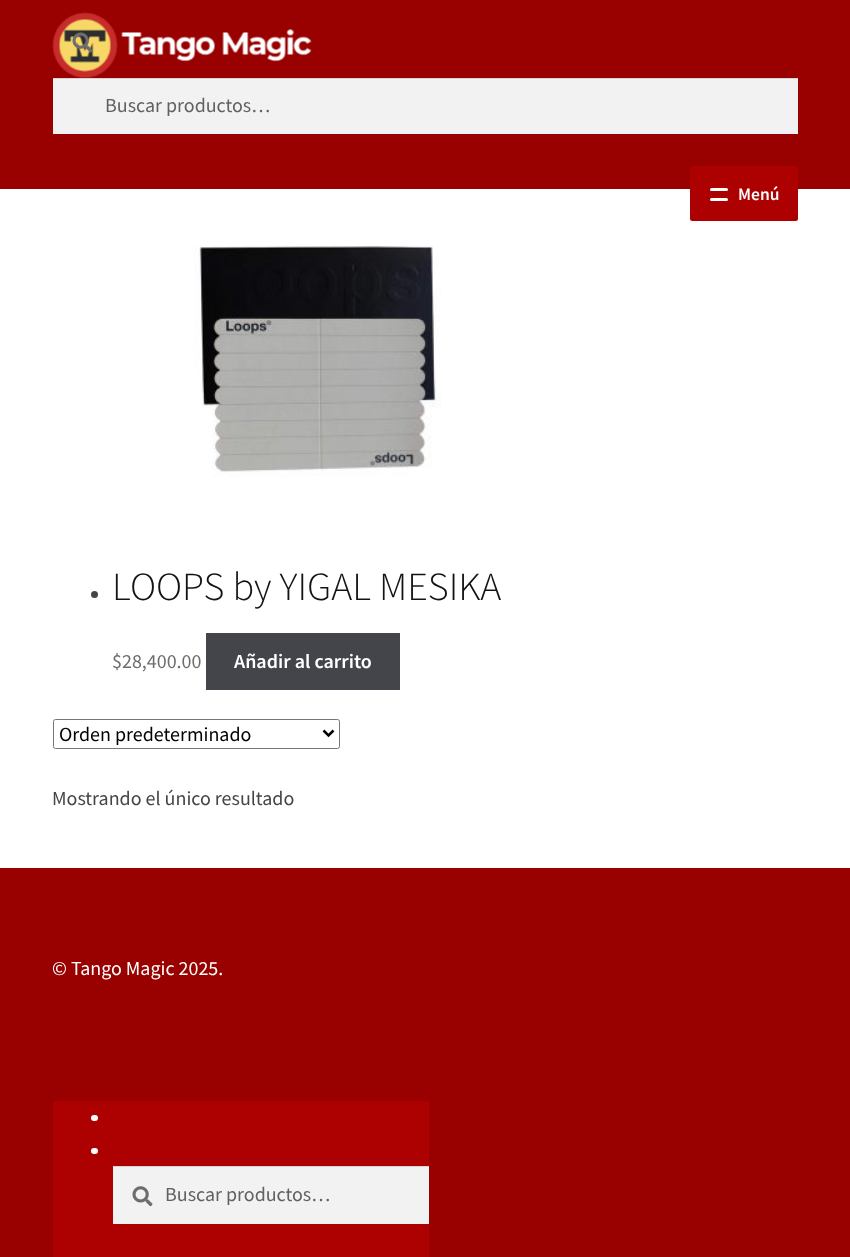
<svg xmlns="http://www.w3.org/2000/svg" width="850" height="1257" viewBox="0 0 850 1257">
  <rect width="100%" height="100%" fill="#ffffff"/>
  <rect x="0" y="0" width="850" height="189" fill="#990101"/>
  <image x="52" y="12" width="260" height="66" href="img1.png"/>
  <image x="72" y="32" width="21" height="21" href="img2.png"/>
  <rect x="53" y="79" width="745" height="55" fill="#f2f2f2"/>
  <rect x="53" y="78" width="745" height="1" fill="#d4d4d4"/>
  <text x="105" y="112" font-family="Source Sans Pro" font-size="20" fill="#616161">Buscar productos…</text>
  <rect x="690" y="166" width="108" height="55" rx="2.5" fill="#ad0101"/>
  <rect x="710" y="188" width="18" height="3" rx="1.5" fill="#ffffff"/>
  <text x="738" y="200" font-family="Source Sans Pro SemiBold" font-size="17.5" font-weight="600" fill="#ffffff">Menú</text>
  <rect x="710" y="198" width="18" height="3" rx="1.5" fill="#ffffff"/>
  <circle cx="94.5" cy="594.5" r="3.5" fill="#43454b"/>
  <image x="194" y="245" width="247" height="232" href="img3.png"/>
  <text x="112" y="600" font-family="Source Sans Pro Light" font-size="40" font-weight="300" fill="#131315">LOOPS by YIGAL MESIKA</text>
  <text x="112" y="668" font-family="Source Sans Pro" font-size="20" fill="#6d6d6d">$28,400.00</text>
  <rect x="206" y="633" width="194" height="57" fill="#43454b"/>
  <text x="234" y="668" font-family="Source Sans Pro SemiBold" font-size="20" font-weight="600" fill="#ffffff">Añadir al carrito</text>
  <rect x="53.5" y="719.5" width="286" height="29" rx="2" fill="none" stroke="#767676"/>
  <path d="M323.5 730.5L328.5 735.5L333.5 730.5" fill="none" stroke="#000000" stroke-width="2.5"/>
  <text x="59" y="741" font-family="Source Sans Pro" font-size="20" fill="#000000">Orden predeterminado</text>
  <text x="52" y="805" font-family="Source Sans Pro" font-size="20" fill="#43454b">Mostrando el único resultado</text>
  <rect x="0" y="868" width="850" height="389" fill="#990101"/>
  <text x="52" y="975" font-family="Source Sans Pro" font-size="20" fill="#ffffff">© Tango Magic 2025.</text>
  <rect x="53" y="1101" width="376" height="156" fill="#ad0101"/>
  <rect x="91" y="1115" width="7" height="6" rx="3" fill="#ffffff"/>
  <rect x="91" y="1148" width="7" height="6" rx="3" fill="#ffffff"/>
  <rect x="113" y="1167" width="316" height="57" fill="#f2f2f2"/>
  <image x="132" y="1186" width="21" height="21" href="img4.png"/>
  <rect x="113" y="1166" width="316" height="1" fill="#d4d4d4"/>
  <text x="165" y="1201" font-family="Source Sans Pro" font-size="20" fill="#616161">Buscar productos…</text>
</svg>
